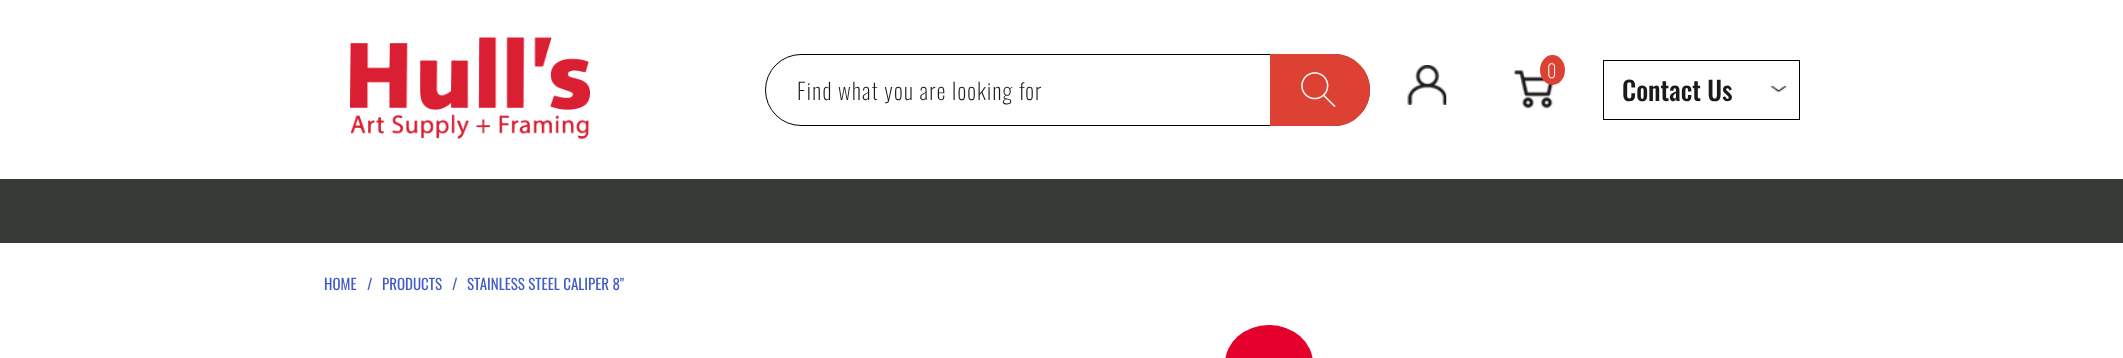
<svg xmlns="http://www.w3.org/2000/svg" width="2123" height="358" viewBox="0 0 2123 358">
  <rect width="100%" height="100%" fill="#ffffff"/>
  <image x="350" y="37" width="240" height="102" href="img1.png"/>
  <rect x="765.5" y="54.5" width="604" height="71" rx="35.5" fill="none" stroke="#000000"/>
  <text x="797" y="100" font-family="Oswald" font-size="22.5" font-weight="200" letter-spacing="1.25" fill="#1a1a1a">Find what you are looking for</text>
  <path d="M1270 54H1334C1354 54 1370 70 1370 90C1370 110 1354 126 1334 126H1270Z" fill="#dc4133"/>
  <image x="1301" y="72" width="35" height="36" href="img2.png"/>
  <image x="1407" y="65" width="40" height="40" href="img3.png"/>
  <image x="1513" y="70" width="41" height="39" href="img4.png"/>
  <ellipse cx="1552.5" cy="70" rx="12.5" ry="15" fill="#dc4133"/>
  <text x="1547" y="78" font-family="Oswald" font-size="18" font-weight="200" fill="#ffffff">0</text>
  <rect x="1603.5" y="60.5" width="196" height="59" fill="none" stroke="#000000"/>
  <text x="1622" y="101" font-family="Oswald" font-size="26.25" font-weight="500" fill="#1a1a1a">Contact Us</text>
  <image x="1770" y="85" width="18" height="8" href="img5.png"/>
  <rect x="0" y="179" width="2123" height="64" fill="#373936"/>
  <text x="324" y="290" font-family="Oswald" font-size="15" fill="#425cc7">HOME</text>
  <text x="367" y="290" font-family="Oswald" font-size="15" fill="#425cc7">/</text>
  <text x="382" y="290" font-family="Oswald" font-size="15" fill="#425cc7">PRODUCTS</text>
  <text x="452" y="290" font-family="Oswald" font-size="15" fill="#425cc7">/</text>
  <text x="467" y="290" font-family="Oswald" font-size="15" fill="#425cc7">STAINLESS STEEL CALIPER 8"</text>
  <rect x="1225" y="325" width="88" height="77" rx="44" fill="#e4002b"/>
</svg>
